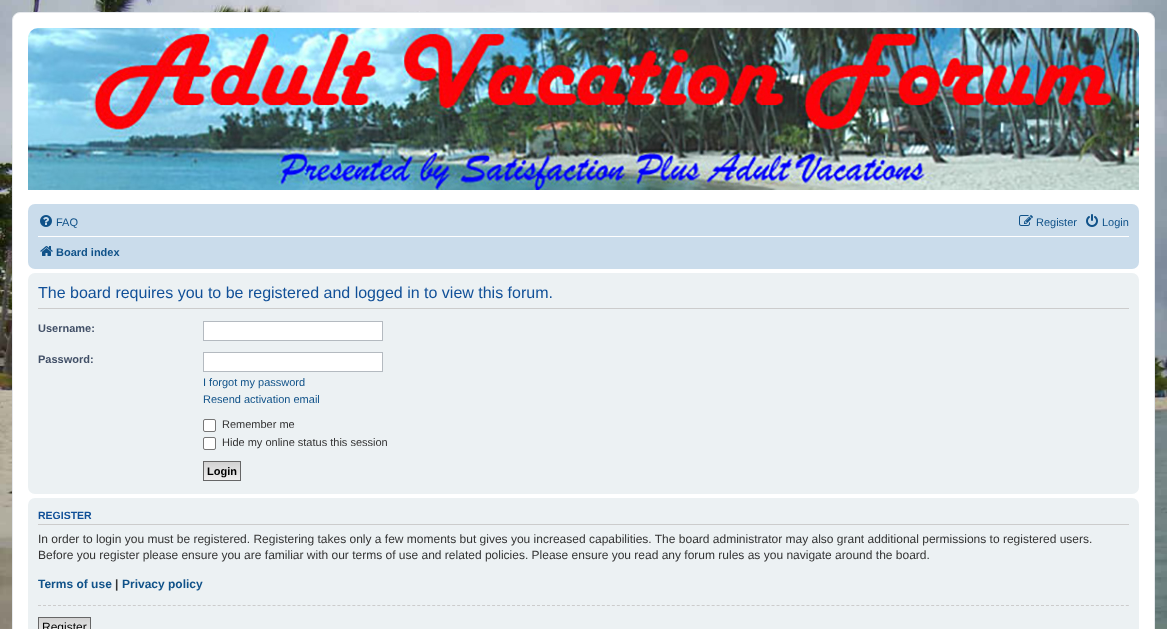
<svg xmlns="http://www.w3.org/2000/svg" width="1167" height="629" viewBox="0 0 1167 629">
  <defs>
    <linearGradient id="g1" gradientUnits="userSpaceOnUse" x1="222" y1="462" x2="222" y2="480"><stop offset="0" stop-color="#d2d2d2"/><stop offset="1" stop-color="#efefef"/></linearGradient>
    <linearGradient id="g2" gradientUnits="userSpaceOnUse" x1="65" y1="618" x2="65" y2="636"><stop offset="0" stop-color="#d2d2d2"/><stop offset="1" stop-color="#efefef"/></linearGradient>
  </defs>
  <rect width="100%" height="100%" fill="#ffffff"/>
  <image x="0" y="628" width="1167" height="1" href="img1.png"/>
  <image x="0" y="0" width="1167" height="629" href="img2.png"/>
  <rect x="12.5" y="12.5" width="1142" height="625" rx="7.5" fill="#ffffff" stroke="#e6e9ed"/>
  <image x="28" y="28" width="1111" height="162" href="img3.png"/>
  <rect x="28" y="204" width="1111" height="65" rx="7" fill="#cadceb"/>
  <image x="40" y="215" width="12" height="12" href="img4.png"/>
  <text x="56" y="226" font-family="Liberation Sans" font-size="11" fill="#105289">FAQ</text>
  <image x="1019" y="215" width="14" height="11" href="img5.png"/>
  <text x="1036" y="226" font-family="Liberation Sans" font-size="11" fill="#105289">Register</text>
  <image x="1086" y="214" width="12" height="13" href="img6.png"/>
  <text x="1102" y="226" font-family="Liberation Sans" font-size="11" fill="#105289">Login</text>
  <rect x="38" y="236" width="1091" height="1" fill="#ffffff"/>
  <image x="40" y="246" width="13" height="10" href="img7.png"/>
  <text x="56" y="256" font-family="Liberation Sans" font-size="11" font-weight="bold" fill="#105289">Board index</text>
  <rect x="28" y="273" width="1111" height="221" rx="7" fill="#ecf1f3"/>
  <rect x="38" y="308" width="1091" height="1" fill="#cccccc"/>
  <text x="38" y="298" font-family="Liberation Sans" font-size="16" fill="#115098">The board requires you to be registered and logged in to view this forum.</text>
  <text x="38" y="332" font-family="Liberation Sans" font-size="11" font-weight="bold" fill="#425067">Username:</text>
  <rect x="203.5" y="321.5" width="179" height="19" fill="#ffffff" stroke="#b4bac0"/>
  <text x="38" y="363" font-family="Liberation Sans" font-size="11" font-weight="bold" fill="#425067">Password:</text>
  <rect x="203.5" y="352.5" width="179" height="19" fill="#ffffff" stroke="#b4bac0"/>
  <text x="203" y="386" font-family="Liberation Sans" font-size="11" fill="#105289">I forgot my password</text>
  <text x="203" y="403" font-family="Liberation Sans" font-size="11" fill="#105289">Resend activation email</text>
  <rect x="203.5" y="419.5" width="12" height="12" rx="1.5" fill="#ffffff" stroke="#767676"/>
  <text x="222" y="428" font-family="Liberation Sans" font-size="11" fill="#333333">Remember me</text>
  <rect x="203.5" y="437.5" width="12" height="12" rx="1.5" fill="#ffffff" stroke="#767676"/>
  <text x="222" y="446" font-family="Liberation Sans" font-size="11" fill="#333333">Hide my online status this session</text>
  <rect x="204" y="462" width="36" height="18" fill="url(#g1)"/>
  <rect x="203.5" y="461.5" width="37" height="19" fill="none" stroke="#666666"/>
  <text x="207" y="475" font-family="Liberation Sans" font-size="11" font-weight="bold" fill="#000000">Login</text>
  <rect x="28" y="498" width="1111" height="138" rx="7" fill="#ecf1f3"/>
  <rect x="38" y="524" width="1091" height="1" fill="#cccccc"/>
  <text x="38" y="519" font-family="Liberation Sans" font-size="10.5" font-weight="bold" fill="#115098">REGISTER</text>
  <text x="38" y="543" font-family="Liberation Sans" font-size="12" fill="#333333">In order to login you must be registered. Registering takes only a few moments but gives you increased capabilities. The board administrator may also grant additional permissions to registered users.</text>
  <text x="38" y="559" font-family="Liberation Sans" font-size="12" fill="#333333">Before you register please ensure you are familiar with our terms of use and related policies. Please ensure you read any forum rules as you navigate around the board.</text>
  <text x="38" y="588" font-family="Liberation Sans" font-size="12" font-weight="bold" fill="#105289">Terms of use</text>
  <text x="115" y="588" font-family="Liberation Sans" font-size="12" font-weight="bold" fill="#333333">|</text>
  <text x="122" y="588" font-family="Liberation Sans" font-size="12" font-weight="bold" fill="#105289">Privacy policy</text>
  <path d="M38 605.5H1129" fill="none" stroke="#cccccc" stroke-dasharray="3 1.99"/>
  <rect x="39" y="618" width="51" height="11" fill="url(#g2)"/>
  <rect x="38.5" y="617.5" width="52" height="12" fill="none" stroke="#666666"/>
  <text x="42" y="631" font-family="Liberation Sans" font-size="12" fill="#000000">Register</text>
</svg>
